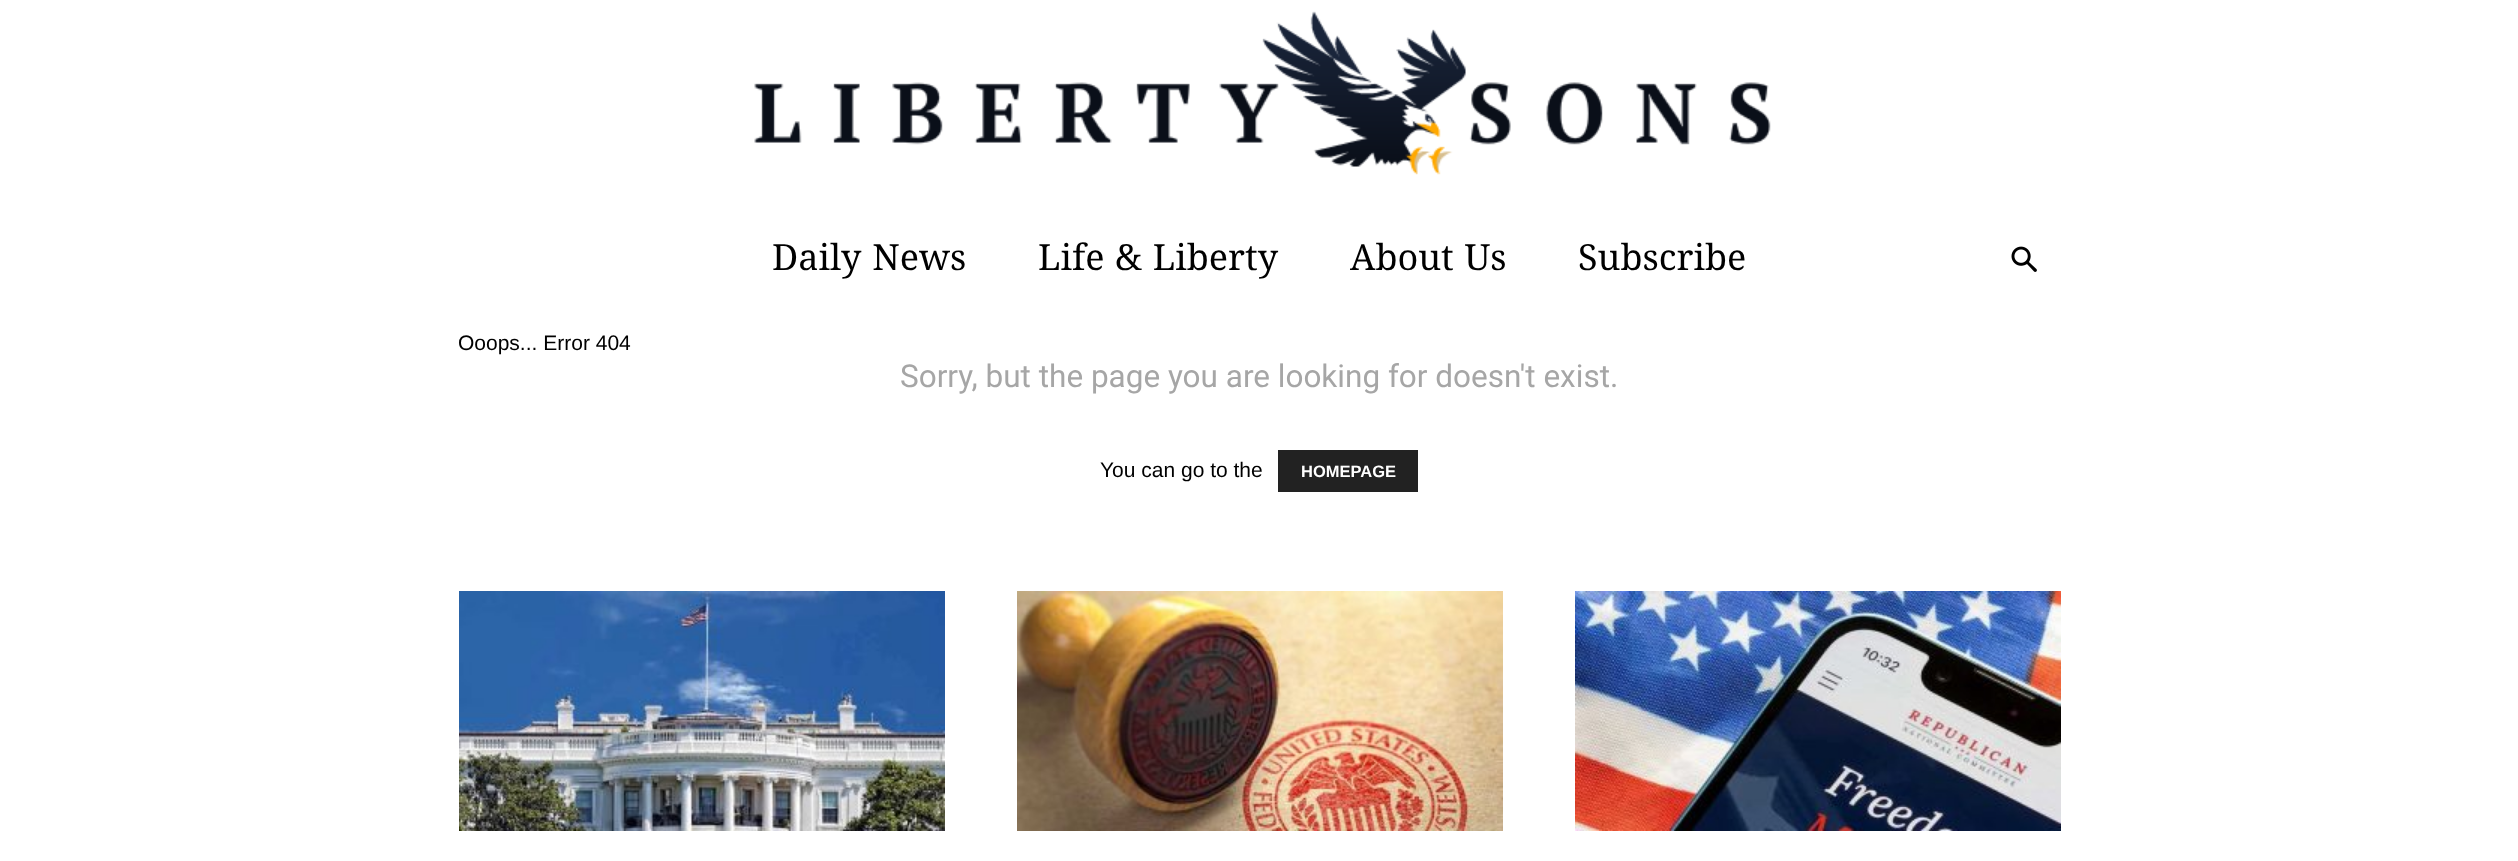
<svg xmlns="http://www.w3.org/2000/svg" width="2518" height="861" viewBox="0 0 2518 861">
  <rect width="100%" height="100%" fill="#ffffff"/>
  <image x="754" y="11" width="1017" height="164" href="img1.png"/>
  <text x="772" y="270" font-family="Noto Serif Gujarati" font-size="36" fill="#000000">Daily News</text>
  <text x="1038" y="270" font-family="Noto Serif Gujarati" font-size="36" fill="#000000">Life &amp; Liberty</text>
  <text x="1350" y="270" font-family="Noto Serif Gujarati" font-size="36" fill="#000000">About Us</text>
  <text x="1578" y="270" font-family="Noto Serif Gujarati" font-size="36" fill="#000000">Subscribe</text>
  <image x="2011" y="246" width="26" height="26" href="img2.png"/>
  <text x="458" y="350" font-family="Liberation Sans" font-size="21" fill="#000000">Ooops... Error 404</text>
  <text x="900" y="387" font-family="Roboto" font-size="31.5" fill="#a6a6a6">Sorry, but the page you are looking for doesn't exist.</text>
  <text x="1100" y="477" font-family="Liberation Sans" font-size="21" fill="#000000">You can go to the</text>
  <rect x="1278" y="450" width="140" height="42" fill="#222222"/>
  <text x="1301" y="477" font-family="Liberation Sans" font-size="16.5" font-weight="bold" fill="#ffffff">HOMEPAGE</text>
  <image x="459" y="591" width="486" height="240" href="img3.png"/>
  <image x="1017" y="591" width="486" height="240" href="img4.png"/>
  <image x="1575" y="591" width="486" height="240" href="img5.png"/>
</svg>
